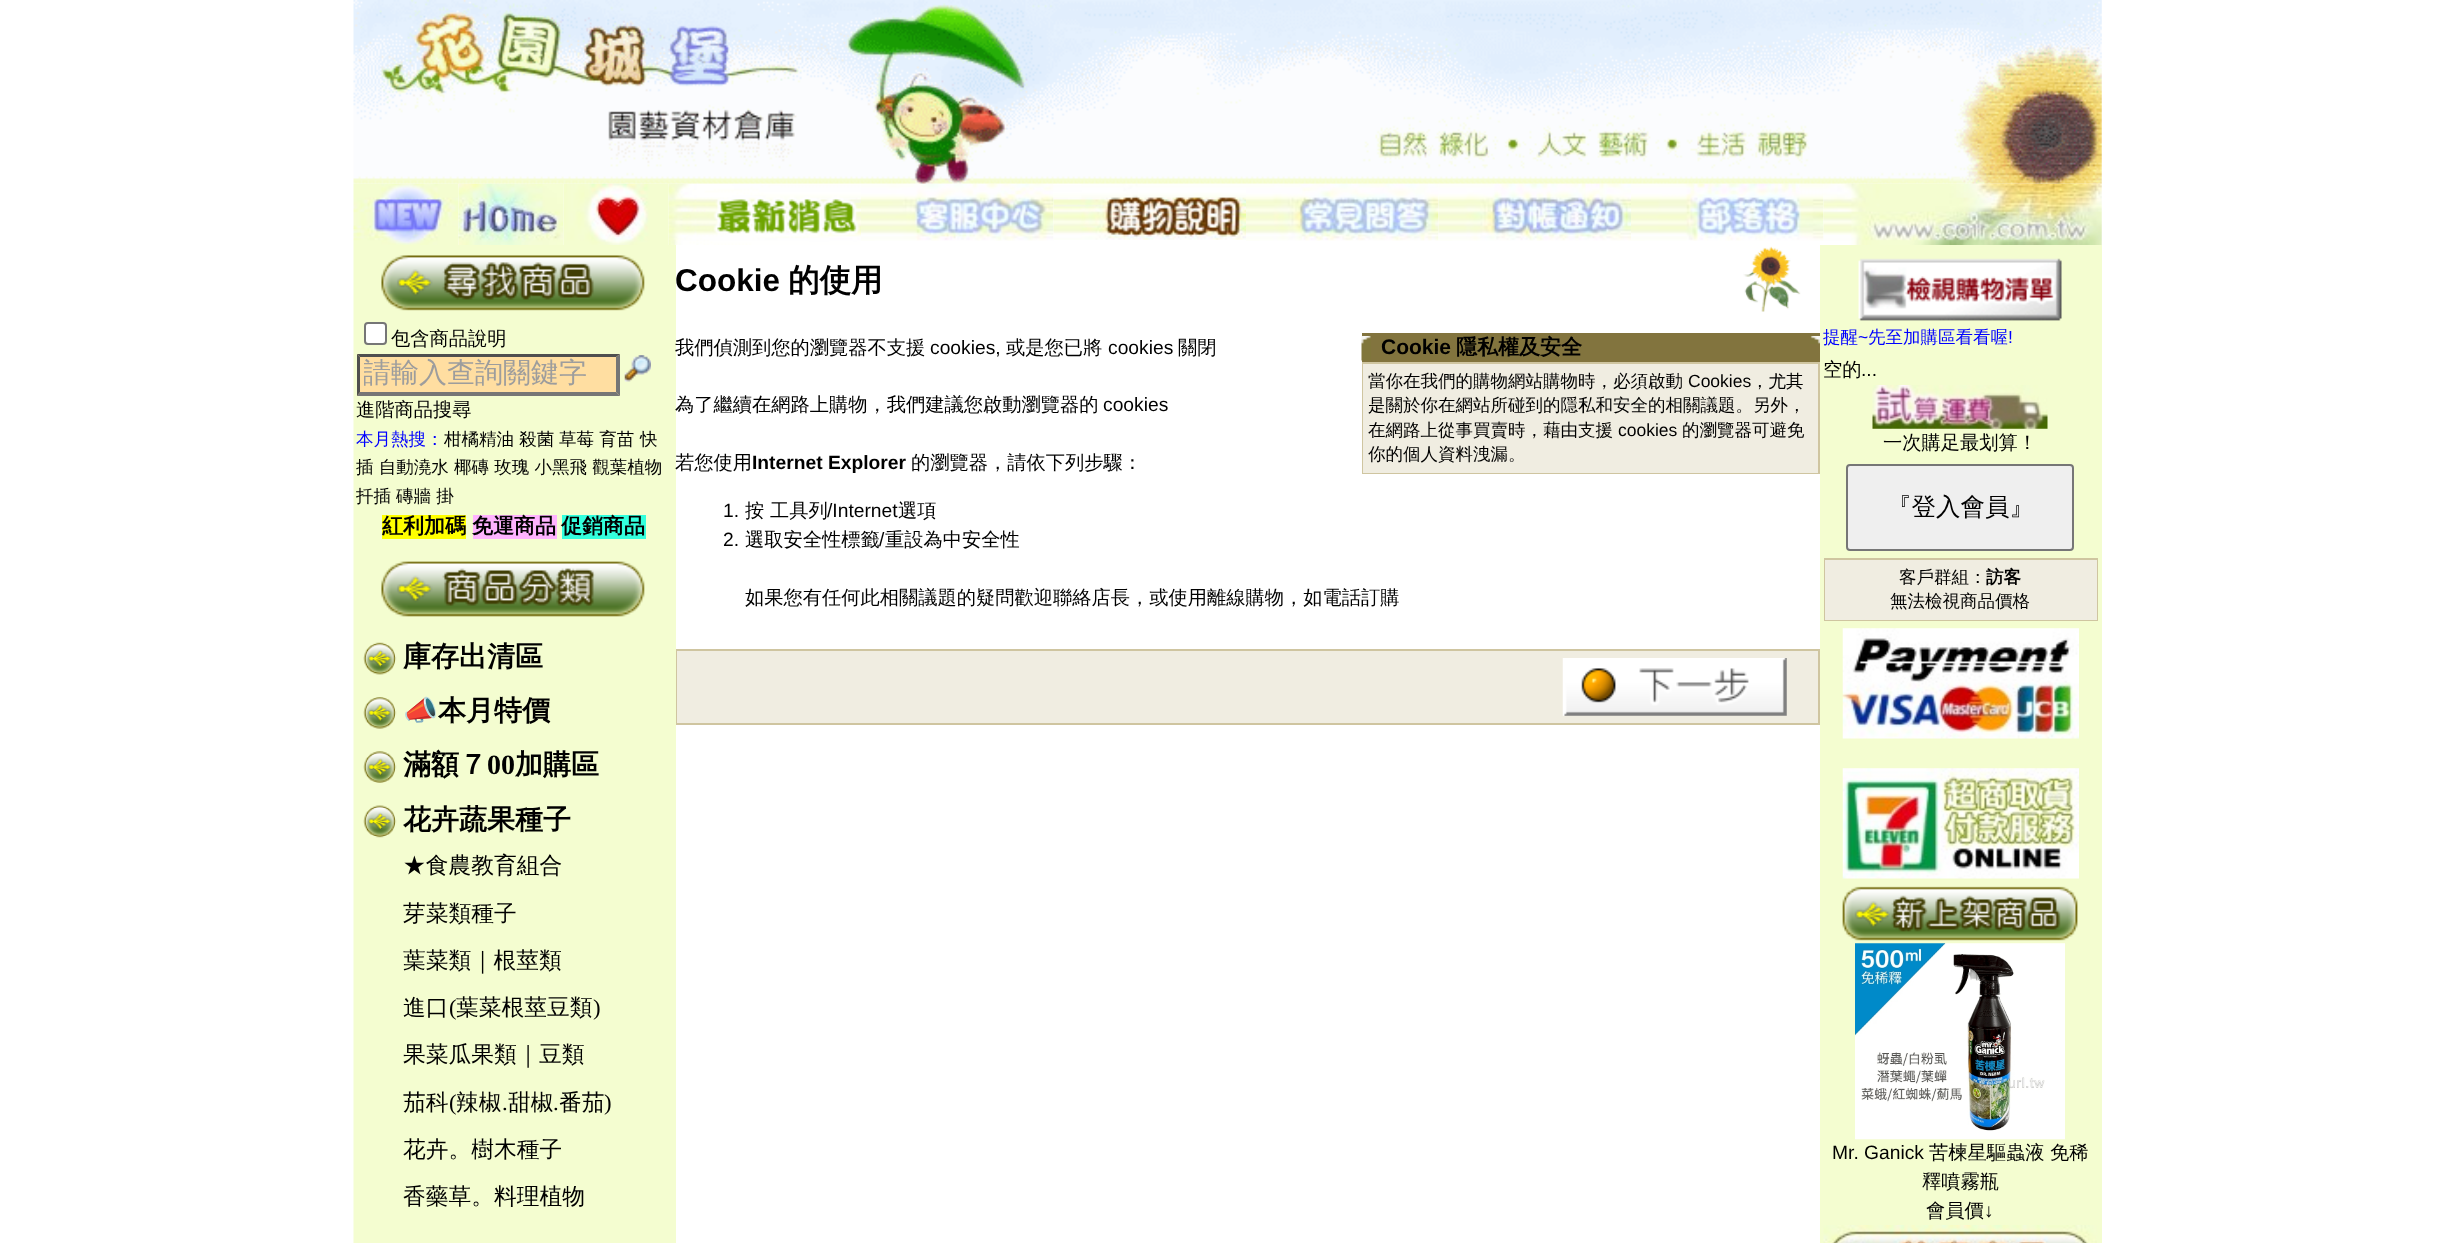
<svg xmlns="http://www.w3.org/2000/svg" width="2453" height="1243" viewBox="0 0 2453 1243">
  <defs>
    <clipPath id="clip1"><rect x="364" y="357" width="249" height="35"/></clipPath>
  </defs>
  <rect width="100%" height="100%" fill="#ffffff"/>
  <image x="353" y="0" width="1749" height="184" href="img1.png"/>
  <image x="353" y="183" width="106" height="62" href="img2.png"/>
  <image x="458" y="183" width="106" height="62" href="img3.png"/>
  <image x="563" y="183" width="106" height="62" href="img4.png"/>
  <image x="668" y="183" width="193" height="62" href="img5.png"/>
  <image x="861" y="183" width="193" height="58" href="img6.png"/>
  <image x="1053" y="183" width="193" height="57" href="img7.png"/>
  <image x="1246" y="183" width="193" height="58" href="img8.png"/>
  <image x="1438" y="183" width="193" height="58" href="img9.png"/>
  <image x="1631" y="183" width="193" height="58" href="img10.png"/>
  <image x="1823" y="183" width="279" height="62" href="img11.png"/>
  <rect x="354" y="245" width="322" height="998" fill="#f4fdd0"/>
  <rect x="353" y="245" width="1" height="998" fill="#f9fee7"/>
  <image x="381" y="255" width="264" height="56" href="img12.png"/>
  <rect x="365" y="323" width="21" height="21" rx="3" fill="#ffffff" stroke="#767676" stroke-width="2"/>
  <text x="391" y="345" font-family="WenQuanYi Zen Hei" font-size="19.25" font-weight="500" fill="#000000">包含商品說明</text>
  <rect x="357" y="354" width="263" height="42" fill="#ffdea1"/>
  <path d="M357 354H620L616 357H360Z" fill="#4f4f4f"/>
  <path d="M620 354V396L616 392V357Z" fill="#767676"/>
  <path d="M620 396H357L360 392H616Z" fill="#767676"/>
  <path d="M357 396V354L360 357V392Z" fill="#4f4f4f"/>
  <g clip-path="url(#clip1)">
    <text x="363" y="382" font-family="WenQuanYi Zen Hei" font-size="28" font-weight="500" fill="#9d9d9d">請輸入查詢關鍵字</text>
  </g>
  <image x="624" y="355" width="27" height="27" href="img13.png"/>
  <text x="356" y="416" font-family="WenQuanYi Zen Hei" font-size="19.25" font-weight="500" fill="#000000">進階商品搜尋</text>
  <text x="356" y="445" font-family="WenQuanYi Zen Hei" font-size="17.5" font-weight="500" fill="#0000ff">本月熱搜：</text>
  <text x="444" y="445" font-family="WenQuanYi Zen Hei" font-size="17.5" font-weight="500" fill="#000000">柑橘精油 殺菌</text>
  <text x="559" y="445" font-family="WenQuanYi Zen Hei" font-size="17.5" font-weight="500" fill="#000000">草莓 育苗</text>
  <text x="640" y="445" font-family="WenQuanYi Zen Hei" font-size="17.5" font-weight="500" fill="#000000">快</text>
  <text x="356" y="473" font-family="WenQuanYi Zen Hei" font-size="17.5" font-weight="500" fill="#000000">插 自動澆水 椰磚 玫瑰 小黑飛 觀葉植物</text>
  <text x="356" y="502" font-family="WenQuanYi Zen Hei" font-size="17.5" font-weight="500" fill="#000000">扦插</text>
  <text x="396" y="502" font-family="WenQuanYi Zen Hei" font-size="17.5" font-weight="500" fill="#000000">磚牆 掛</text>
  <rect x="382" y="515" width="84" height="24" fill="#ffff00"/>
  <text x="382" y="533" font-family="WenQuanYi Zen Hei" font-size="21" font-weight="bold" fill="#000000">紅利加碼</text>
  <rect x="473" y="515" width="84" height="24" fill="#ffb3ff"/>
  <text x="472" y="533" font-family="WenQuanYi Zen Hei" font-size="21" font-weight="bold" fill="#000000">免運商品</text>
  <rect x="562" y="515" width="84" height="24" fill="#33ffdd"/>
  <text x="561" y="533" font-family="WenQuanYi Zen Hei" font-size="21" font-weight="bold" fill="#000000">促銷商品</text>
  <image x="381" y="561" width="264" height="56" href="img14.png"/>
  <image x="363" y="642" width="34" height="33" href="img15.png"/>
  <text x="403" y="666" font-family="WenQuanYi Zen Hei" font-size="28" font-weight="bold" fill="#000000">庫存出清區</text>
  <image x="363" y="697" width="34" height="32" href="img16.png"/>
  <text x="403" y="720" font-family="Noto Color Emoji" font-size="28" font-weight="bold" fill="#000000">📣</text>
  <text x="438" y="720" font-family="WenQuanYi Zen Hei" font-size="28" font-weight="bold" fill="#000000">本月特價</text>
  <image x="363" y="751" width="34" height="32" href="img17.png"/>
  <text x="403" y="774" font-family="WenQuanYi Zen Hei" font-size="28" font-weight="bold" fill="#000000">滿額７</text>
  <text x="487" y="774" font-family="Liberation Serif" font-size="28" font-weight="bold" fill="#000000">00</text>
  <text x="515" y="774" font-family="WenQuanYi Zen Hei" font-size="28" font-weight="bold" fill="#000000">加購區</text>
  <image x="363" y="805" width="34" height="33" href="img18.png"/>
  <text x="403" y="829" font-family="WenQuanYi Zen Hei" font-size="28" font-weight="bold" fill="#000000">花卉蔬果種子</text>
  <text x="403" y="873" font-family="WenQuanYi Zen Hei" font-size="22.75" font-weight="500" fill="#000000">★食農教育組合</text>
  <text x="403" y="921" font-family="WenQuanYi Zen Hei" font-size="22.75" font-weight="500" fill="#000000">芽菜類種子</text>
  <text x="403" y="968" font-family="WenQuanYi Zen Hei" font-size="22.75" font-weight="500" fill="#000000">葉菜類｜根莖類</text>
  <text x="403" y="1015" font-family="WenQuanYi Zen Hei" font-size="22.75" font-weight="500" fill="#000000">進口</text>
  <text x="449" y="1015" font-family="Liberation Serif" font-size="22.75" fill="#000000">(</text>
  <text x="456" y="1015" font-family="WenQuanYi Zen Hei" font-size="22.75" font-weight="500" fill="#000000">葉菜根莖豆類</text>
  <text x="593" y="1015" font-family="Liberation Serif" font-size="22.75" fill="#000000">)</text>
  <text x="403" y="1062" font-family="WenQuanYi Zen Hei" font-size="22.75" font-weight="500" fill="#000000">果菜瓜果類｜豆類</text>
  <text x="403" y="1110" font-family="WenQuanYi Zen Hei" font-size="22.75" font-weight="500" fill="#000000">茄科</text>
  <text x="449" y="1110" font-family="Liberation Serif" font-size="22.75" fill="#000000">(</text>
  <text x="456" y="1110" font-family="WenQuanYi Zen Hei" font-size="22.75" font-weight="500" fill="#000000">辣椒</text>
  <text x="502" y="1110" font-family="Liberation Serif" font-size="22.75" fill="#000000">.</text>
  <text x="508" y="1110" font-family="WenQuanYi Zen Hei" font-size="22.75" font-weight="500" fill="#000000">甜椒</text>
  <text x="553" y="1110" font-family="Liberation Serif" font-size="22.75" fill="#000000">.</text>
  <text x="559" y="1110" font-family="WenQuanYi Zen Hei" font-size="22.75" font-weight="500" fill="#000000">番茄</text>
  <text x="604" y="1110" font-family="Liberation Serif" font-size="22.75" fill="#000000">)</text>
  <text x="403" y="1157" font-family="WenQuanYi Zen Hei" font-size="22.75" font-weight="500" fill="#000000">花卉。樹木種子</text>
  <text x="403" y="1204" font-family="WenQuanYi Zen Hei" font-size="22.75" font-weight="500" fill="#000000">香藥草。料理植物</text>
  <text x="675" y="291" font-family="Liberation Sans" font-size="31.5" font-weight="bold" fill="#000000">Cookie</text>
  <text x="788" y="291" font-family="WenQuanYi Zen Hei" font-size="31.5" font-weight="bold" fill="#000000">的使用</text>
  <image x="1743" y="246" width="58" height="66" href="img19.png"/>
  <text x="675" y="354" font-family="WenQuanYi Zen Hei" font-size="19.25" font-weight="500" fill="#000000">我們偵測到您的瀏覽器不支援</text>
  <text x="930" y="354" font-family="Liberation Sans" font-size="19.25" fill="#000000">cookies,</text>
  <text x="1006" y="354" font-family="WenQuanYi Zen Hei" font-size="19.25" font-weight="500" fill="#000000">或是您已將</text>
  <text x="1108" y="354" font-family="Liberation Sans" font-size="19.25" fill="#000000">cookies</text>
  <text x="1178" y="354" font-family="WenQuanYi Zen Hei" font-size="19.25" font-weight="500" fill="#000000">關閉</text>
  <rect x="1362" y="333" width="458" height="29" fill="#82743e"/>
  <image x="1361" y="336" width="10" height="25" href="img20.png"/>
  <text x="1381" y="354" font-family="Liberation Sans" font-size="21" font-weight="bold" fill="#000000">Cookie</text>
  <text x="1456" y="354" font-family="WenQuanYi Zen Hei" font-size="21" font-weight="bold" fill="#000000">隱私權及安全</text>
  <image x="1810" y="336" width="10" height="8" href="img21.png"/>
  <rect x="1362" y="362" width="458" height="112" fill="#cfc5a0"/>
  <rect x="1363" y="364" width="455" height="109" fill="#f0ede1"/>
  <text x="1368" y="387" font-family="WenQuanYi Zen Hei" font-size="17.5" font-weight="500" fill="#000000">當你在我們的購物網站購物時，必須啟動</text>
  <text x="1688" y="387" font-family="Liberation Sans" font-size="17.5" fill="#000000">Cookies</text>
  <text x="1751" y="387" font-family="WenQuanYi Zen Hei" font-size="17.5" font-weight="500" fill="#000000">，尤其</text>
  <text x="1368" y="411" font-family="WenQuanYi Zen Hei" font-size="17.5" font-weight="500" fill="#000000">是關於你在網站所碰到的隱私和安全的相關議題。另外，</text>
  <text x="1368" y="436" font-family="WenQuanYi Zen Hei" font-size="17.5" font-weight="500" fill="#000000">在網路上從事買賣時，藉由支援</text>
  <text x="1618" y="436" font-family="Liberation Sans" font-size="17.5" fill="#000000">cookies</text>
  <text x="1682" y="436" font-family="WenQuanYi Zen Hei" font-size="17.5" font-weight="500" fill="#000000">的瀏覽器可避免</text>
  <text x="1368" y="460" font-family="WenQuanYi Zen Hei" font-size="17.5" font-weight="500" fill="#000000">你的個人資料洩漏。</text>
  <text x="675" y="411" font-family="WenQuanYi Zen Hei" font-size="19.25" font-weight="500" fill="#000000">為了繼續在網路上購物，我們建議您啟動瀏覽器的</text>
  <text x="1103" y="411" font-family="Liberation Sans" font-size="19.25" fill="#000000">cookies</text>
  <text x="675" y="469" font-family="WenQuanYi Zen Hei" font-size="19.25" font-weight="500" fill="#000000">若您使用</text>
  <text x="752" y="469" font-family="Liberation Sans" font-size="19.25" font-weight="bold" fill="#000000">Internet Explorer</text>
  <text x="911" y="469" font-family="WenQuanYi Zen Hei" font-size="19.25" font-weight="500" fill="#000000">的瀏覽器，請依下列步驟：</text>
  <text x="723" y="517" font-family="Liberation Sans" font-size="19.25" fill="#000000">1.</text>
  <text x="745" y="517" font-family="WenQuanYi Zen Hei" font-size="19.25" font-weight="500" fill="#000000">按 工具列</text>
  <text x="827" y="517" font-family="Liberation Sans" font-size="19.25" fill="#000000">/Internet</text>
  <text x="898" y="517" font-family="WenQuanYi Zen Hei" font-size="19.25" font-weight="500" fill="#000000">選項</text>
  <text x="723" y="546" font-family="Liberation Sans" font-size="19.25" fill="#000000">2.</text>
  <text x="745" y="546" font-family="WenQuanYi Zen Hei" font-size="19.25" font-weight="500" fill="#000000">選取安全性標籤</text>
  <text x="879" y="546" font-family="Liberation Sans" font-size="19.25" fill="#000000">/</text>
  <text x="885" y="546" font-family="WenQuanYi Zen Hei" font-size="19.25" font-weight="500" fill="#000000">重設為中安全性</text>
  <text x="745" y="604" font-family="WenQuanYi Zen Hei" font-size="19.25" font-weight="500" fill="#000000">如果您有任何此相關議題的疑問歡迎聯絡店長，或使用離線購物，如電話訂購</text>
  <rect x="676" y="649" width="1144" height="76" fill="#cfc5a0"/>
  <rect x="677" y="651" width="1141" height="72" fill="#f0ede1"/>
  <image x="1562" y="658" width="225" height="58" href="img22.png"/>
  <rect x="1820" y="245" width="282" height="998" fill="#f4fdd0"/>
  <image x="1858" y="258" width="204" height="63" href="img23.png"/>
  <text x="1823" y="343" font-family="WenQuanYi Zen Hei" font-size="17.5" font-weight="500" fill="#0000ff">提醒</text>
  <text x="1858" y="343" font-family="Liberation Sans" font-size="17.5" fill="#0000ff">~</text>
  <text x="1868" y="343" font-family="WenQuanYi Zen Hei" font-size="17.5" font-weight="500" fill="#0000ff">先至加購區看看喔</text>
  <text x="2008" y="343" font-family="Liberation Sans" font-size="17.5" fill="#0000ff">!</text>
  <text x="1823" y="376" font-family="WenQuanYi Zen Hei" font-size="19.25" font-weight="500" fill="#000000">空的</text>
  <text x="1861" y="376" font-family="Liberation Sans" font-size="19.25" fill="#000000">...</text>
  <image x="1872" y="385" width="176" height="44" href="img24.png"/>
  <text x="1883" y="449" font-family="WenQuanYi Zen Hei" font-size="19.25" font-weight="500" fill="#000000">一次購足最划算！</text>
  <rect x="1847" y="465" width="226" height="85" rx="3" fill="#efefef" stroke="#767676" stroke-width="2"/>
  <text x="1887" y="515" font-family="WenQuanYi Zen Hei" font-size="24.5" font-weight="500" fill="#000000">『登入會員』</text>
  <rect x="1824" y="558" width="274" height="63" fill="#cfc5a0"/>
  <rect x="1825" y="560" width="272" height="60" fill="#f0ede1"/>
  <text x="1899" y="583" font-family="WenQuanYi Zen Hei" font-size="17.5" font-weight="500" fill="#000000">客戶群組：</text>
  <text x="1986" y="583" font-family="WenQuanYi Zen Hei" font-size="17.5" font-weight="bold" fill="#000000">訪客</text>
  <text x="1890" y="607" font-family="WenQuanYi Zen Hei" font-size="17.5" font-weight="500" fill="#000000">無法檢視商品價格</text>
  <image x="1842" y="628" width="237" height="111" href="img25.png"/>
  <image x="1842" y="768" width="237" height="111" href="img26.png"/>
  <image x="1842" y="886" width="236" height="55" href="img27.png"/>
  <image x="1855" y="943" width="210" height="197" href="img28.png"/>
  <text x="1832" y="1159" font-family="Liberation Sans" font-size="19.25" fill="#000000">Mr. Ganick</text>
  <text x="1929" y="1159" font-family="WenQuanYi Zen Hei" font-size="19.25" font-weight="500" fill="#000000">苦楝星驅蟲液</text>
  <text x="2050" y="1159" font-family="WenQuanYi Zen Hei" font-size="19.25" font-weight="500" fill="#000000">免稀</text>
  <text x="1922" y="1188" font-family="WenQuanYi Zen Hei" font-size="19.25" font-weight="500" fill="#000000">釋噴霧瓶</text>
  <text x="1926" y="1217" font-family="WenQuanYi Zen Hei" font-size="19.25" font-weight="500" fill="#000000">會員價</text>
  <text x="1984" y="1217" font-family="Liberation Sans" font-size="19.25" fill="#000000">↓</text>
  <image x="1823" y="1225" width="274" height="18" href="img29.png"/>
</svg>
